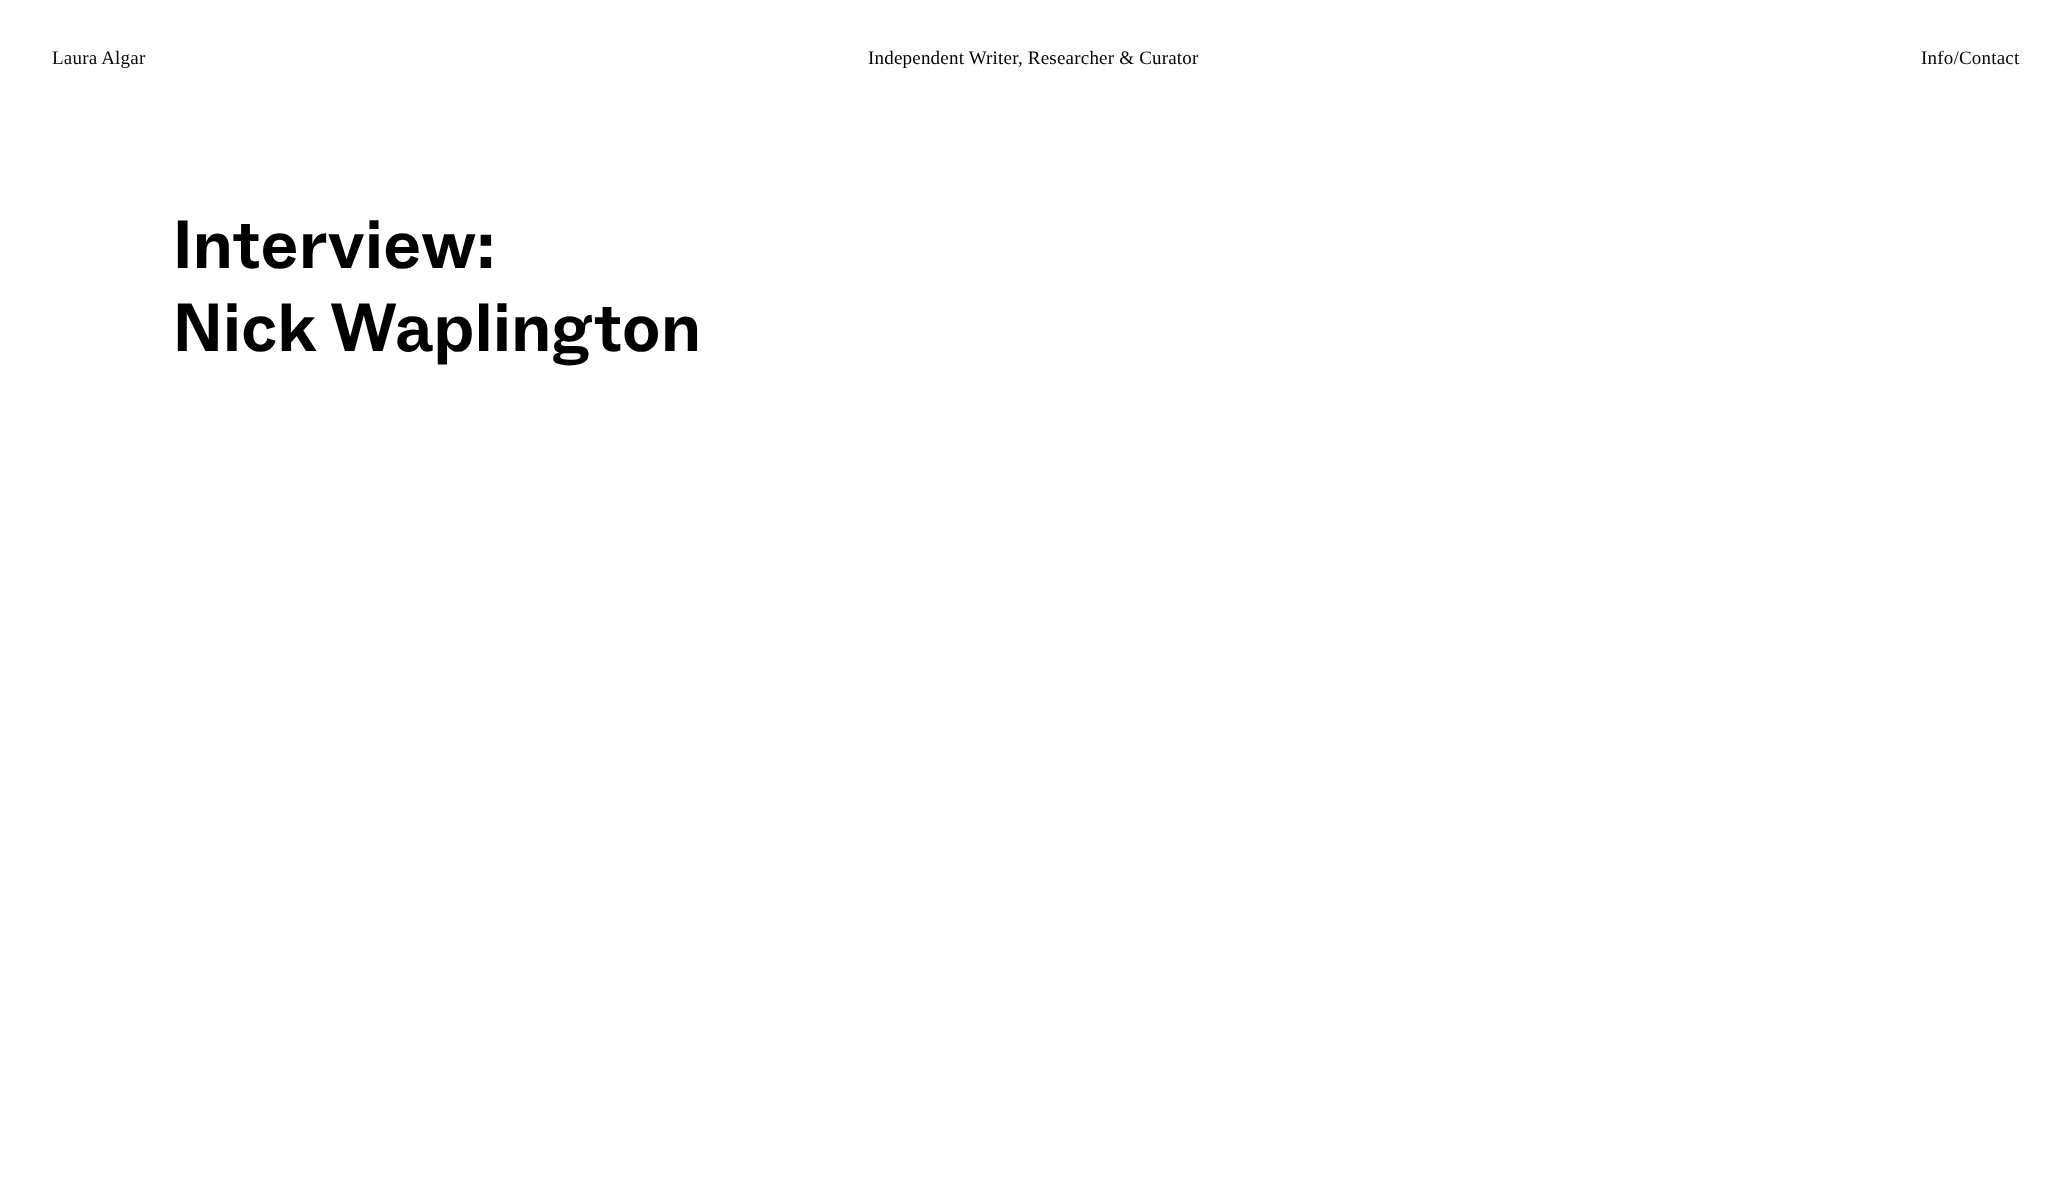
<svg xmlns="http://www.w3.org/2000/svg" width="2071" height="1199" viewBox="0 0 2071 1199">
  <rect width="100%" height="100%" fill="#ffffff"/>
  <text x="52" y="64" font-family="Liberation Serif" font-size="19" letter-spacing="0.2" fill="#060606">Laura Algar</text>
  <text x="868" y="64" font-family="Liberation Serif" font-size="19" letter-spacing="0.2" fill="#000000">Independent Writer, Researcher &amp; Curator</text>
  <text x="1921" y="64" font-family="Liberation Serif" font-size="19" letter-spacing="0.2" fill="#060606">Info/Contact</text>
  <text x="173" y="268" font-family="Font" font-size="69" font-weight="bold" letter-spacing="0.9" fill="#000000">Interview:</text>
  <text x="173" y="351" font-family="Font" font-size="69" font-weight="bold" letter-spacing="0.9" fill="#000000">Nick Waplington</text>
</svg>
